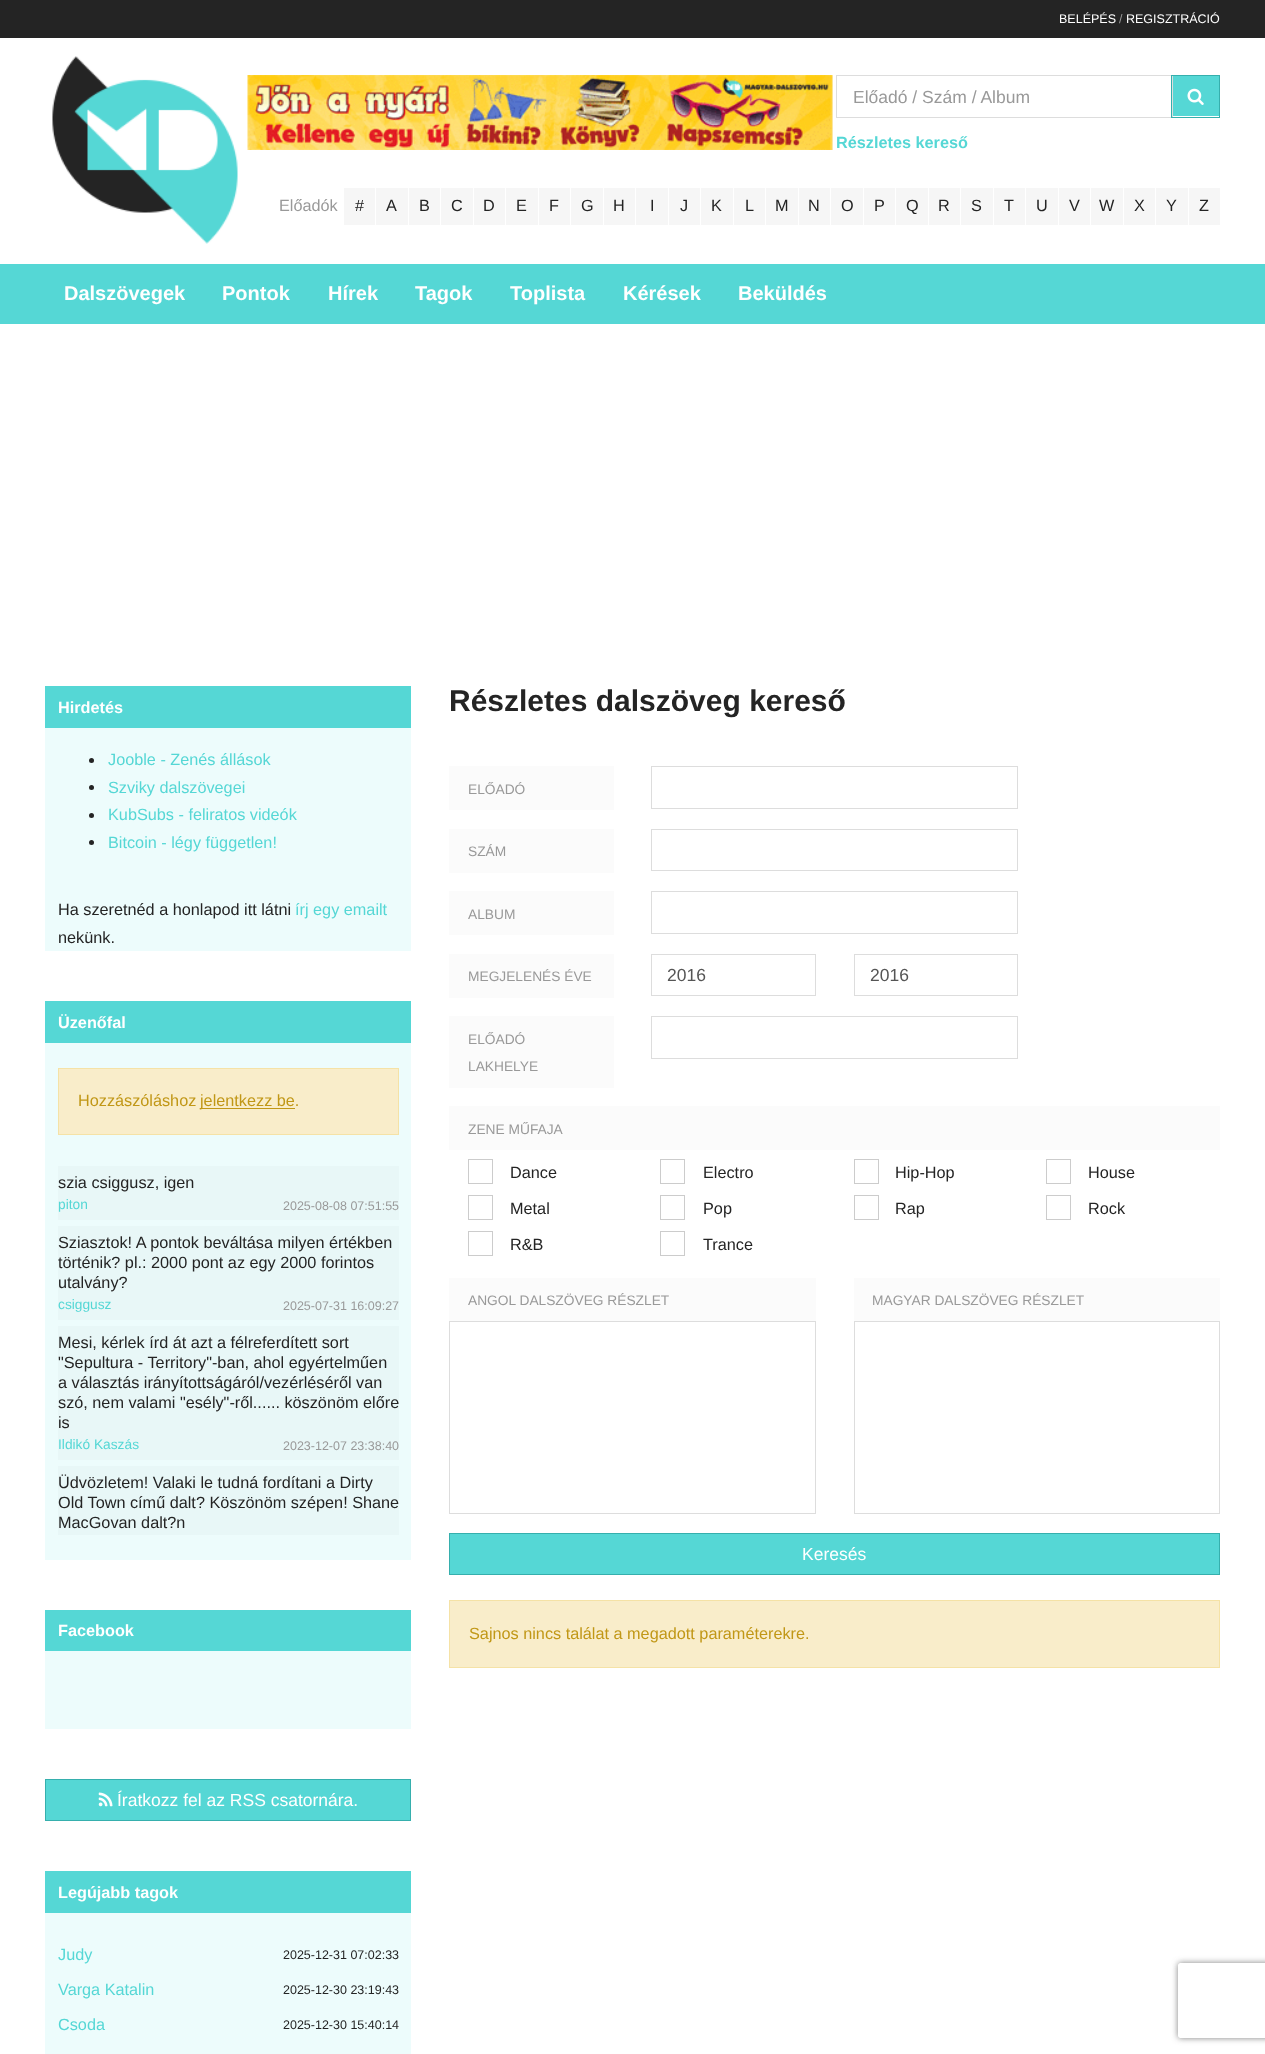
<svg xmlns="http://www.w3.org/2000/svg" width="1265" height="2054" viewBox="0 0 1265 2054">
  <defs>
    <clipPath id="clip1"><path d="M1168 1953H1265V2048H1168ZM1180.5 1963H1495.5C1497 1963 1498 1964 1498 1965.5V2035.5C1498 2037 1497 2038 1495.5 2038H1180.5C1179 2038 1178 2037 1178 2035.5V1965.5C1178 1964 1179 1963 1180.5 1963Z" clip-rule="evenodd"/></clipPath>
    <filter id="blur1" x="-50%" y="-200%" width="200%" height="500%"><feGaussianBlur stdDeviation="3"/></filter>
  </defs>
  <rect width="100%" height="100%" fill="#ffffff"/>
  <rect x="0" y="0" width="1265" height="38" fill="#242424"/>
  <text x="1059" y="23" font-family="Arimo" font-size="12.5" fill="#ffffff">BELÉPÉS</text>
  <text x="1119" y="23" font-family="Arimo" font-size="12.5" fill="#999999">/</text>
  <text x="1126" y="23" font-family="Arimo" font-size="12.5" fill="#ffffff">REGISZTRÁCIÓ</text>
  <image x="52" y="56" width="186" height="188" href="img1.png"/>
  <rect x="832" y="75" width="1" height="75" fill="#f6f6f6"/>
  <image x="247" y="75" width="586" height="75" href="img2.png"/>
  <rect x="836.5" y="75.5" width="336" height="42" fill="none" stroke="#dddddd"/>
  <text x="853" y="103" font-family="Arimo" font-size="17.5" fill="#999999">Előadó / Szám / Album</text>
  <rect x="1171.5" y="75.5" width="48" height="42" fill="none" stroke="#36afad"/>
  <rect x="1173" y="76" width="46" height="40" fill="#55d7d5"/>
  <image x="1187" y="88" width="17" height="17" href="img3.png"/>
  <text x="836" y="148" font-family="Arimo" font-size="16.25" font-weight="bold" fill="#55d7d5">Részletes kereső</text>
  <text x="279" y="211" font-family="Arimo" font-size="16.25" fill="#999999">Előadók</text>
  <rect x="344" y="188" width="31" height="37" fill="#f6f6f6"/>
  <text x="355" y="211" font-family="Arimo" font-size="16.25" fill="#242424">#</text>
  <rect x="376" y="188" width="32" height="37" fill="#f6f6f6"/>
  <text x="386" y="211" font-family="Arimo" font-size="16.25" fill="#242424">A</text>
  <rect x="409" y="188" width="31" height="37" fill="#f6f6f6"/>
  <text x="419" y="211" font-family="Arimo" font-size="16.25" fill="#242424">B</text>
  <rect x="441" y="188" width="32" height="37" fill="#f6f6f6"/>
  <text x="451" y="211" font-family="Arimo" font-size="16.25" fill="#242424">C</text>
  <rect x="474" y="188" width="31" height="37" fill="#f6f6f6"/>
  <text x="483" y="211" font-family="Arimo" font-size="16.25" fill="#242424">D</text>
  <rect x="506" y="188" width="32" height="37" fill="#f6f6f6"/>
  <text x="516" y="211" font-family="Arimo" font-size="16.25" fill="#242424">E</text>
  <rect x="539" y="188" width="31" height="37" fill="#f6f6f6"/>
  <text x="549" y="211" font-family="Arimo" font-size="16.25" fill="#242424">F</text>
  <rect x="571" y="188" width="32" height="37" fill="#f6f6f6"/>
  <text x="581" y="211" font-family="Arimo" font-size="16.25" fill="#242424">G</text>
  <rect x="604" y="188" width="31" height="37" fill="#f6f6f6"/>
  <text x="613" y="211" font-family="Arimo" font-size="16.25" fill="#242424">H</text>
  <rect x="636" y="188" width="32" height="37" fill="#f6f6f6"/>
  <text x="650" y="211" font-family="Arimo" font-size="16.25" fill="#242424">I</text>
  <rect x="669" y="188" width="31" height="37" fill="#f6f6f6"/>
  <text x="680" y="211" font-family="Arimo" font-size="16.25" fill="#242424">J</text>
  <rect x="701" y="188" width="32" height="37" fill="#f6f6f6"/>
  <text x="711" y="211" font-family="Arimo" font-size="16.25" fill="#242424">K</text>
  <rect x="734" y="188" width="31" height="37" fill="#f6f6f6"/>
  <text x="745" y="211" font-family="Arimo" font-size="16.25" fill="#242424">L</text>
  <rect x="766" y="188" width="32" height="37" fill="#f6f6f6"/>
  <text x="775" y="211" font-family="Arimo" font-size="16.25" fill="#242424">M</text>
  <rect x="799" y="188" width="31" height="37" fill="#f6f6f6"/>
  <text x="808" y="211" font-family="Arimo" font-size="16.25" fill="#242424">N</text>
  <rect x="831" y="188" width="32" height="37" fill="#f6f6f6"/>
  <text x="841" y="211" font-family="Arimo" font-size="16.25" fill="#242424">O</text>
  <rect x="864" y="188" width="31" height="37" fill="#f6f6f6"/>
  <text x="874" y="211" font-family="Arimo" font-size="16.25" fill="#242424">P</text>
  <rect x="896" y="188" width="32" height="37" fill="#f6f6f6"/>
  <text x="906" y="211" font-family="Arimo" font-size="16.25" fill="#242424">Q</text>
  <rect x="929" y="188" width="31" height="37" fill="#f6f6f6"/>
  <text x="938" y="211" font-family="Arimo" font-size="16.25" fill="#242424">R</text>
  <rect x="961" y="188" width="32" height="37" fill="#f6f6f6"/>
  <text x="971" y="211" font-family="Arimo" font-size="16.25" fill="#242424">S</text>
  <rect x="994" y="188" width="31" height="37" fill="#f6f6f6"/>
  <text x="1004" y="211" font-family="Arimo" font-size="16.25" fill="#242424">T</text>
  <rect x="1026" y="188" width="32" height="37" fill="#f6f6f6"/>
  <text x="1036" y="211" font-family="Arimo" font-size="16.25" fill="#242424">U</text>
  <rect x="1059" y="188" width="31" height="37" fill="#f6f6f6"/>
  <text x="1069" y="211" font-family="Arimo" font-size="16.25" fill="#242424">V</text>
  <rect x="1091" y="188" width="32" height="37" fill="#f6f6f6"/>
  <text x="1099" y="211" font-family="Arimo" font-size="16.25" fill="#242424">W</text>
  <rect x="1124" y="188" width="31" height="37" fill="#f6f6f6"/>
  <text x="1134" y="211" font-family="Arimo" font-size="16.25" fill="#242424">X</text>
  <rect x="1156" y="188" width="32" height="37" fill="#f6f6f6"/>
  <text x="1166" y="211" font-family="Arimo" font-size="16.25" fill="#242424">Y</text>
  <rect x="1189" y="188" width="31" height="37" fill="#f6f6f6"/>
  <text x="1199" y="211" font-family="Arimo" font-size="16.25" fill="#242424">Z</text>
  <rect x="0" y="264" width="1265" height="60" fill="#55d7d5"/>
  <text x="64" y="300" font-family="Arimo" font-size="20" font-weight="bold" fill="#ffffff">Dalszövegek</text>
  <text x="222" y="300" font-family="Arimo" font-size="20" font-weight="bold" fill="#ffffff">Pontok</text>
  <text x="328" y="300" font-family="Arimo" font-size="20" font-weight="bold" fill="#ffffff">Hírek</text>
  <text x="415" y="300" font-family="Arimo" font-size="20" font-weight="bold" fill="#ffffff">Tagok</text>
  <text x="510" y="300" font-family="Arimo" font-size="20" font-weight="bold" fill="#ffffff">Toplista</text>
  <text x="623" y="300" font-family="Arimo" font-size="20" font-weight="bold" fill="#ffffff">Kérések</text>
  <text x="738" y="300" font-family="Arimo" font-size="20" font-weight="bold" fill="#ffffff">Beküldés</text>
  <rect x="45" y="728" width="366" height="223" fill="#edfcfc"/>
  <rect x="45" y="686" width="366" height="42" fill="#55d7d5"/>
  <text x="58" y="713" font-family="Arimo" font-size="16.25" font-weight="bold" fill="#ffffff">Hirdetés</text>
  <circle cx="91.5" cy="760.5" r="2.5" fill="#242424"/>
  <text x="108" y="765" font-family="Arimo" font-size="16.25" fill="#55d7d5">Jooble - Zenés állások</text>
  <circle cx="91.5" cy="787.5" r="2.5" fill="#242424"/>
  <text x="108" y="793" font-family="Arimo" font-size="16.25" fill="#55d7d5">Szviky dalszövegei</text>
  <circle cx="91.5" cy="815.5" r="2.5" fill="#242424"/>
  <text x="108" y="820" font-family="Arimo" font-size="16.25" fill="#55d7d5">KubSubs - feliratos videók</text>
  <circle cx="91.5" cy="842.5" r="2.5" fill="#242424"/>
  <text x="108" y="848" font-family="Arimo" font-size="16.25" fill="#55d7d5">Bitcoin - légy független!</text>
  <text x="58" y="915" font-family="Arimo" font-size="16.25" fill="#242424">Ha szeretnéd a honlapod itt látni</text>
  <text x="295" y="915" font-family="Arimo" font-size="16.25" fill="#55d7d5">írj egy emailt</text>
  <text x="58" y="943" font-family="Arimo" font-size="16.25" fill="#242424">nekünk.</text>
  <rect x="45" y="1043" width="366" height="517" fill="#edfcfc"/>
  <rect x="45" y="1001" width="366" height="42" fill="#55d7d5"/>
  <text x="58" y="1028" font-family="Arimo" font-size="16.25" font-weight="bold" fill="#ffffff">Üzenőfal</text>
  <rect x="58.5" y="1068.5" width="340" height="66" fill="#f9edca" stroke="#f5e2a6"/>
  <text x="78" y="1106" font-family="Arimo" font-size="16.25" fill="#c19716">Hozzászóláshoz</text>
  <rect x="200" y="1108" width="95" height="1" fill="#c19716"/>
  <text x="200" y="1106" font-family="Arimo" font-size="16.25" fill="#c19716">jelentkezz be.</text>
  <rect x="58" y="1166" width="341" height="54" fill="#e8f7f7"/>
  <text x="58" y="1188" font-family="Arimo" font-size="16.25" fill="#242424">szia csiggusz, igen</text>
  <text x="58" y="1209" font-family="Arimo" font-size="13.75" fill="#55d7d5">piton</text>
  <text x="283" y="1210" font-family="Arimo" font-size="12.5" fill="#999999">2025-08-08 07:51:55</text>
  <rect x="58" y="1226" width="341" height="94" fill="#e8f7f7"/>
  <text x="58" y="1248" font-family="Arimo" font-size="16.25" fill="#242424">Sziasztok! A pontok beváltása milyen értékben</text>
  <text x="58" y="1268" font-family="Arimo" font-size="16.25" fill="#242424">történik? pl.: 2000 pont az egy 2000 forintos</text>
  <text x="58" y="1288" font-family="Arimo" font-size="16.25" fill="#242424">utalvány?</text>
  <text x="58" y="1309" font-family="Arimo" font-size="13.75" fill="#55d7d5">csiggusz</text>
  <text x="283" y="1310" font-family="Arimo" font-size="12.5" fill="#999999">2025-07-31 16:09:27</text>
  <rect x="58" y="1326" width="341" height="134" fill="#e8f7f7"/>
  <text x="58" y="1348" font-family="Arimo" font-size="16.25" fill="#242424">Mesi, kérlek írd át azt a félreferdített sort</text>
  <text x="58" y="1368" font-family="Arimo" font-size="16.25" fill="#242424">"Sepultura - Territory"-ban, ahol egyértelműen</text>
  <text x="58" y="1388" font-family="Arimo" font-size="16.25" fill="#242424">a választás irányítottságáról/vezérléséről van</text>
  <text x="58" y="1408" font-family="Arimo" font-size="16.25" fill="#242424">szó, nem valami "esély"-ről...... köszönöm előre</text>
  <text x="58" y="1428" font-family="Arimo" font-size="16.25" fill="#242424">is</text>
  <text x="58" y="1449" font-family="Arimo" font-size="13.75" fill="#55d7d5">Ildikó Kaszás</text>
  <text x="283" y="1450" font-family="Arimo" font-size="12.5" fill="#999999">2023-12-07 23:38:40</text>
  <rect x="58" y="1466" width="341" height="69" fill="#e8f7f7"/>
  <text x="58" y="1488" font-family="Arimo" font-size="16.25" fill="#242424">Üdvözletem! Valaki le tudná fordítani a Dirty</text>
  <text x="58" y="1508" font-family="Arimo" font-size="16.25" fill="#242424">Old Town című dalt? Köszönöm szépen! Shane</text>
  <text x="58" y="1528" font-family="Arimo" font-size="16.25" fill="#242424">MacGovan dalt?n</text>
  <rect x="45" y="1651" width="366" height="78" fill="#edfcfc"/>
  <rect x="45" y="1610" width="366" height="41" fill="#55d7d5"/>
  <text x="58" y="1636" font-family="Arimo" font-size="16.25" font-weight="bold" fill="#ffffff">Facebook</text>
  <rect x="45.5" y="1779.5" width="365" height="41" fill="none" stroke="#36afad"/>
  <rect x="46" y="1780" width="364" height="40" fill="#55d7d5"/>
  <image x="98" y="1792" width="15" height="15" href="img4.png"/>
  <text x="117" y="1806" font-family="Arimo" font-size="17.5" fill="#ffffff">Íratkozz fel az RSS csatornára.</text>
  <rect x="45" y="1913" width="366" height="141" fill="#edfcfc"/>
  <rect x="45" y="1871" width="366" height="42" fill="#55d7d5"/>
  <text x="58" y="1898" font-family="Arimo" font-size="16.25" font-weight="bold" fill="#ffffff">Legújabb tagok</text>
  <text x="58" y="1960" font-family="Arimo" font-size="16.25" fill="#55d7d5">Judy</text>
  <text x="283" y="1959" font-family="Arimo" font-size="12.5" fill="#242424">2025-12-31 07:02:33</text>
  <text x="58" y="1995" font-family="Arimo" font-size="16.25" fill="#55d7d5">Varga Katalin</text>
  <text x="283" y="1994" font-family="Arimo" font-size="12.5" fill="#242424">2025-12-30 23:19:43</text>
  <text x="58" y="2030" font-family="Arimo" font-size="16.25" fill="#55d7d5">Csoda</text>
  <text x="283" y="2029" font-family="Arimo" font-size="12.5" fill="#242424">2025-12-30 15:40:14</text>
  <text x="449" y="711" font-family="Arimo" font-size="30" font-weight="bold" fill="#242424">Részletes dalszöveg kereső</text>
  <rect x="449" y="766" width="165" height="44" fill="#fbfbfb"/>
  <text x="468" y="794" font-family="Arimo" font-size="13.75" fill="#999999">ELŐADÓ</text>
  <rect x="651.5" y="766.5" width="366" height="42" fill="none" stroke="#dddddd"/>
  <rect x="449" y="829" width="165" height="44" fill="#fbfbfb"/>
  <text x="468" y="856" font-family="Arimo" font-size="13.75" fill="#999999">SZÁM</text>
  <rect x="651.5" y="829.5" width="366" height="41" fill="none" stroke="#dddddd"/>
  <rect x="449" y="891" width="165" height="44" fill="#fbfbfb"/>
  <text x="468" y="919" font-family="Arimo" font-size="13.75" fill="#999999">ALBUM</text>
  <rect x="651.5" y="891.5" width="366" height="42" fill="none" stroke="#dddddd"/>
  <rect x="449" y="954" width="165" height="44" fill="#fbfbfb"/>
  <text x="468" y="981" font-family="Arimo" font-size="13.75" fill="#999999">MEGJELENÉS ÉVE</text>
  <rect x="651.5" y="954.5" width="164" height="41" fill="none" stroke="#dddddd"/>
  <text x="667" y="981" font-family="Arimo" font-size="17.5" fill="#555555">2016</text>
  <rect x="854.5" y="954.5" width="163" height="41" fill="none" stroke="#dddddd"/>
  <text x="870" y="981" font-family="Arimo" font-size="17.5" fill="#555555">2016</text>
  <rect x="449" y="1016" width="165" height="72" fill="#fbfbfb"/>
  <text x="468" y="1044" font-family="Arimo" font-size="13.75" fill="#999999">ELŐADÓ</text>
  <text x="468" y="1071" font-family="Arimo" font-size="13.75" fill="#999999">LAKHELYE</text>
  <rect x="651.5" y="1016.5" width="366" height="42" fill="none" stroke="#dddddd"/>
  <rect x="449" y="1106" width="771" height="44" fill="#fbfbfb"/>
  <text x="468" y="1134" font-family="Arimo" font-size="13.75" fill="#999999">ZENE MŰFAJA</text>
  <rect x="468.5" y="1159.5" width="24" height="24" fill="none" stroke="#cccccc"/>
  <text x="510" y="1178" font-family="Arimo" font-size="16.25" fill="#242424">Dance</text>
  <rect x="660.5" y="1159.5" width="24" height="24" fill="none" stroke="#cccccc"/>
  <text x="703" y="1178" font-family="Arimo" font-size="16.25" fill="#242424">Electro</text>
  <rect x="854.5" y="1159.5" width="24" height="24" fill="none" stroke="#cccccc"/>
  <text x="895" y="1178" font-family="Arimo" font-size="16.25" fill="#242424">Hip-Hop</text>
  <rect x="1046.5" y="1159.5" width="24" height="24" fill="none" stroke="#cccccc"/>
  <text x="1088" y="1178" font-family="Arimo" font-size="16.25" fill="#242424">House</text>
  <rect x="468.5" y="1195.5" width="24" height="24" fill="none" stroke="#cccccc"/>
  <text x="510" y="1214" font-family="Arimo" font-size="16.25" fill="#242424">Metal</text>
  <rect x="660.5" y="1195.5" width="24" height="24" fill="none" stroke="#cccccc"/>
  <text x="703" y="1214" font-family="Arimo" font-size="16.25" fill="#242424">Pop</text>
  <rect x="854.5" y="1195.5" width="24" height="24" fill="none" stroke="#cccccc"/>
  <text x="895" y="1214" font-family="Arimo" font-size="16.25" fill="#242424">Rap</text>
  <rect x="1046.5" y="1195.5" width="24" height="24" fill="none" stroke="#cccccc"/>
  <text x="1088" y="1214" font-family="Arimo" font-size="16.25" fill="#242424">Rock</text>
  <rect x="468.5" y="1231.5" width="24" height="24" fill="none" stroke="#cccccc"/>
  <text x="510" y="1250" font-family="Arimo" font-size="16.25" fill="#242424">R&amp;B</text>
  <rect x="660.5" y="1231.5" width="24" height="24" fill="none" stroke="#cccccc"/>
  <text x="703" y="1250" font-family="Arimo" font-size="16.25" fill="#242424">Trance</text>
  <rect x="449" y="1278" width="367" height="43" fill="#fbfbfb"/>
  <text x="468" y="1305" font-family="Arimo" font-size="13.75" fill="#999999">ANGOL DALSZÖVEG RÉSZLET</text>
  <rect x="449.5" y="1321.5" width="366" height="192" fill="none" stroke="#dddddd"/>
  <rect x="854" y="1278" width="366" height="43" fill="#fbfbfb"/>
  <text x="872" y="1305" font-family="Arimo" font-size="13.75" fill="#999999">MAGYAR DALSZÖVEG RÉSZLET</text>
  <rect x="854.5" y="1321.5" width="365" height="192" fill="none" stroke="#dddddd"/>
  <rect x="449.5" y="1533.5" width="770" height="41" fill="none" stroke="#36afad"/>
  <rect x="450" y="1534" width="769" height="40" fill="#55d7d5"/>
  <text x="802" y="1560" font-family="Arimo" font-size="17.5" fill="#ffffff">Keresés</text>
  <rect x="449.5" y="1600.5" width="770" height="67" fill="#f9edca" stroke="#f5e2a6"/>
  <text x="469" y="1639" font-family="Arimo" font-size="16.25" fill="#c19716">Sajnos nincs találat a megadott paraméterekre.</text>
  <g clip-path="url(#clip1)">
    <rect x="1178" y="1963" width="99" height="75" rx="2.5" fill="#808080" filter="url(#blur1)"/>
  </g>
</svg>
